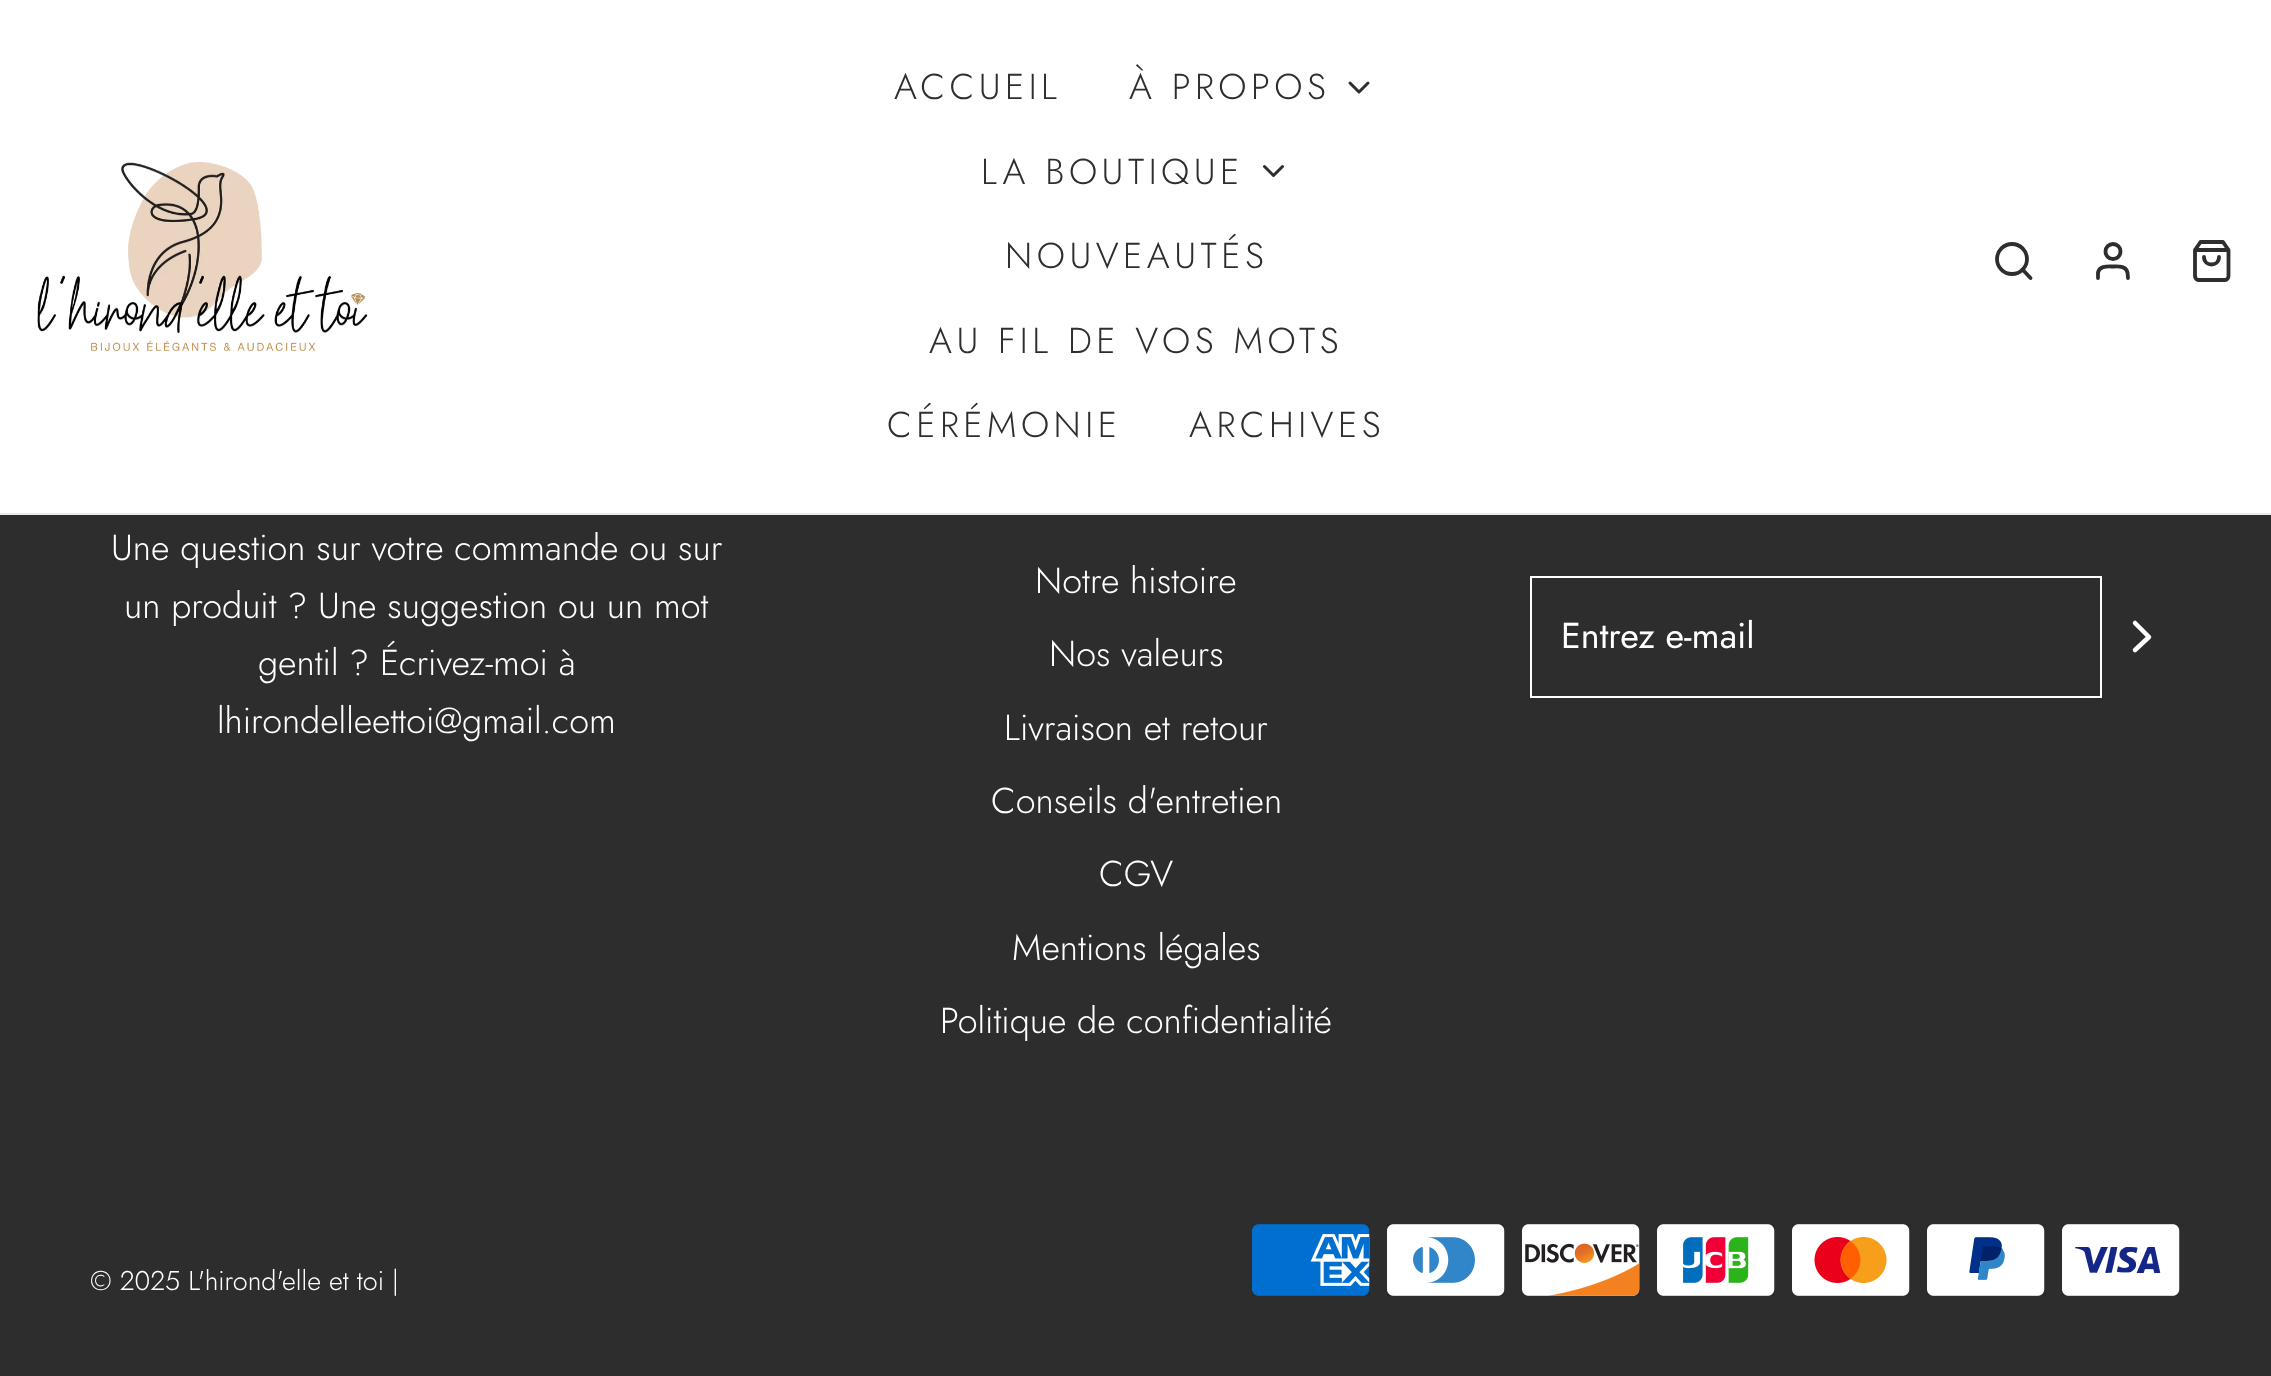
<svg xmlns="http://www.w3.org/2000/svg" width="2271" height="1376" viewBox="0 0 2271 1376">
  <rect width="100%" height="100%" fill="#2d2d2d"/>
  <rect x="0" y="0" width="2271" height="513" fill="#ffffff"/>
  <rect x="0" y="513" width="2271" height="2" fill="#eaeaea"/>
  <image x="37" y="161" width="331" height="190" href="img1.png"/>
  <text x="894" y="99" font-family="Jost" font-size="36" font-weight="300" letter-spacing="4.5" fill="#2e2e2e">ACCUEIL</text>
  <text x="1129" y="99" font-family="Jost" font-size="36" font-weight="300" letter-spacing="4.5" fill="#2e2e2e">À PROPOS</text>
  <path d="M1350 83L1359 92L1368 83" fill="none" stroke="#2e2e2e" stroke-width="3" stroke-linecap="round" stroke-linejoin="round"/>
  <text x="981" y="184" font-family="Jost" font-size="36" font-weight="300" letter-spacing="4.5" fill="#2e2e2e">LA BOUTIQUE</text>
  <path d="M1264.5 166.5L1273.5 175.5L1282.5 166.5" fill="none" stroke="#2e2e2e" stroke-width="3" stroke-linecap="round" stroke-linejoin="round"/>
  <text x="1005" y="268" font-family="Jost" font-size="36" font-weight="300" letter-spacing="4.5" fill="#2e2e2e">NOUVEAUTÉS</text>
  <text x="929" y="353" font-family="Jost" font-size="36" font-weight="300" letter-spacing="4.5" fill="#2e2e2e">AU FIL DE VOS MOTS</text>
  <text x="887" y="437" font-family="Jost" font-size="36" font-weight="300" letter-spacing="4.5" fill="#2e2e2e">CÉRÉMONIE</text>
  <text x="1189" y="437" font-family="Jost" font-size="36" font-weight="300" letter-spacing="4.5" fill="#2e2e2e">ARCHIVES</text>
  <circle cx="2012" cy="259" r="15" fill="none" stroke="#2e2e2e" stroke-width="3.8"/>
  <path d="M2030.5 278L2022.5 269.5" fill="none" stroke="#2e2e2e" stroke-width="3.8" stroke-linecap="round" stroke-linejoin="round"/>
  <circle cx="2113" cy="251.5" r="7.5" fill="none" stroke="#2e2e2e" stroke-width="3.8"/>
  <path d="M2128 278L2127.5 272.5C2126 265.5 2118 266.5 2113 266.5C2107.5 266.5 2099.5 265.5 2098 272.5V278" fill="none" stroke="#2e2e2e" stroke-width="3.8" stroke-linecap="round" stroke-linejoin="round"/>
  <path d="M2200.5 242L2195 250V276C2195 278 2196.5 280 2198.5 280H2225C2227 280 2228.5 278 2228.5 276V250L2223 242ZM2195 250H2228.5M2219 257C2219 267 2204 267 2204 257" fill="none" stroke="#2e2e2e" stroke-width="3.8" stroke-linecap="round" stroke-linejoin="round"/>
  <text x="111" y="560" font-family="Jost" font-size="36" font-weight="300" fill="#ffffff">Une question sur votre commande ou sur</text>
  <text x="124" y="618" font-family="Jost" font-size="36" font-weight="300" fill="#ffffff">un produit ? Une suggestion ou un mot</text>
  <text x="258" y="675" font-family="Jost" font-size="36" font-weight="300" fill="#ffffff">gentil ? Écrivez-moi à</text>
  <text x="217" y="733" font-family="Jost" font-size="36" font-weight="300" fill="#ffffff">lhirondelleettoi@gmail.com</text>
  <text x="1035" y="593" font-family="Jost" font-size="36" font-weight="300" fill="#ffffff">Notre histoire</text>
  <text x="1049" y="666" font-family="Jost" font-size="36" font-weight="300" fill="#ffffff">Nos valeurs</text>
  <text x="1004" y="740" font-family="Jost" font-size="36" font-weight="300" fill="#ffffff">Livraison et retour</text>
  <text x="991" y="813" font-family="Jost" font-size="36" font-weight="300" fill="#ffffff">Conseils d'entretien</text>
  <text x="1099" y="886" font-family="Jost" font-size="36" font-weight="300" fill="#ffffff">CGV</text>
  <text x="1012" y="960" font-family="Jost" font-size="36" font-weight="300" fill="#ffffff">Mentions légales</text>
  <text x="940" y="1033" font-family="Jost" font-size="36" font-weight="300" fill="#ffffff">Politique de confidentialité</text>
  <rect x="1531" y="577" width="570" height="120" fill="none" stroke="#ffffff" stroke-width="2"/>
  <text x="1561" y="648" font-family="Jost" font-size="36" fill="#ffffff">Entrez e-mail</text>
  <path d="M2135 650L2149 637L2135 623" fill="none" stroke="#ffffff" stroke-width="4.5" stroke-linecap="round" stroke-linejoin="round"/>
  <text x="90" y="1290" font-family="Jost" font-size="27" font-weight="300" fill="#ffffff">© 2025 L'hirond'elle et toi |</text>
  <image x="1252" y="1224" width="118" height="72" href="img2.png"/>
  <image x="1387" y="1224" width="118" height="72" href="img3.png"/>
  <image x="1522" y="1224" width="118" height="72" href="img4.png"/>
  <image x="1657" y="1224" width="118" height="72" href="img5.png"/>
  <image x="1792" y="1224" width="118" height="72" href="img6.png"/>
  <image x="1927" y="1224" width="118" height="72" href="img7.png"/>
  <image x="2062" y="1224" width="118" height="72" href="img8.png"/>
</svg>
